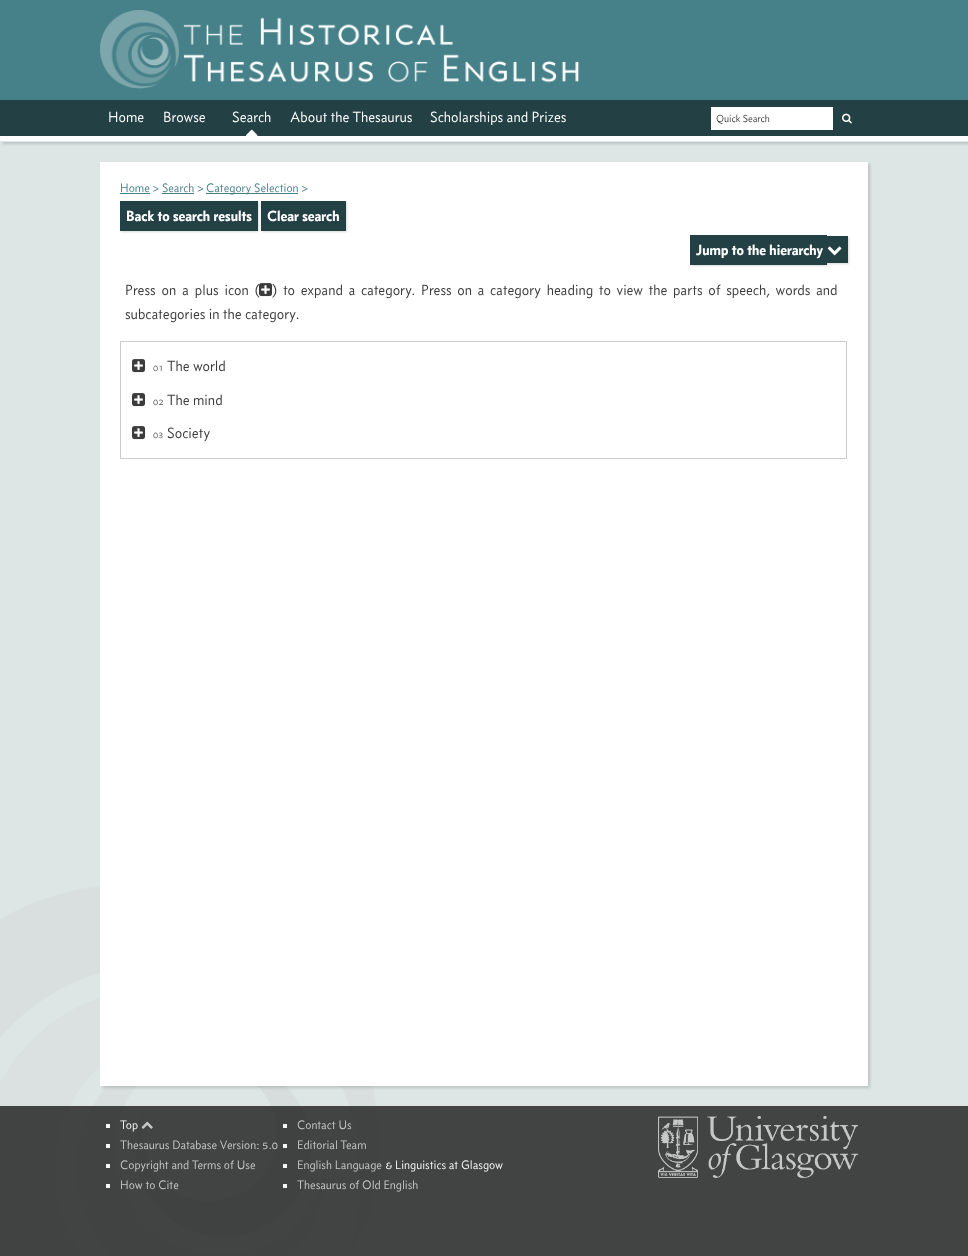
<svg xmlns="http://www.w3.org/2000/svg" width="968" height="1256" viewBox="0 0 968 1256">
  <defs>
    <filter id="blur1" x="-50%" y="-200%" width="200%" height="500%"><feGaussianBlur stdDeviation="1.5"/></filter>
    <filter id="blur2" x="-50%" y="-200%" width="200%" height="500%"><feGaussianBlur stdDeviation="1"/></filter>
  </defs>
  <rect width="100%" height="100%" fill="#dee5e5"/>
  <image x="0" y="886" width="378" height="370" href="img1.png"/>
  <rect x="0" y="0" width="968" height="100" fill="#468189"/>
  <image x="100" y="10" width="480" height="79" href="img2.png"/>
  <rect x="0" y="100" width="968" height="36" fill="#234145"/>
  <text x="108" y="122" font-family="'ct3'" font-size="15.2" font-weight="300" fill="#ffffff">Home</text>
  <text x="163" y="122" font-family="'ct3'" font-size="15.2" font-weight="300" fill="#ffffff">Browse</text>
  <text x="232" y="122" font-family="'ct3'" font-size="15.2" font-weight="300" fill="#ffffff">Search</text>
  <rect x="2" y="138" width="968" height="6" fill="#000000" fill-opacity="0.15" filter="url(#blur1)"/>
  <image x="246" y="129" width="12" height="7" href="img3.png"/>
  <text x="290" y="122" font-family="'ct3'" font-size="15.2" font-weight="300" fill="#ffffff">About the Thesaurus</text>
  <text x="430" y="122" font-family="'ct3'" font-size="15.2" font-weight="300" fill="#ffffff">Scholarships and Prizes</text>
  <rect x="711" y="107" width="122" height="23" fill="#ffffff"/>
  <text x="716" y="122" font-family="'ct3'" font-size="10.5" font-weight="300" fill="#3c3c3c">Quick Search</text>
  <image x="842" y="113" width="10" height="11" href="img4.png"/>
  <rect x="0" y="136" width="968" height="5" fill="#ffffff"/>
  <rect x="0" y="141" width="968" height="1" fill="#dee5e5"/>
  <rect x="102" y="164" width="768" height="924" fill="#000000" fill-opacity="0.15" filter="url(#blur1)"/>
  <rect x="100" y="162" width="768" height="924" fill="#ffffff"/>
  <text x="120" y="192" font-family="'ct3'" font-size="12.5" font-weight="300" fill="#468189">Home &gt; Search &gt;</text>
  <rect x="120" y="193" width="30" height="1" fill="#468189"/>
  <rect x="206" y="193" width="92" height="1" fill="#468189"/>
  <text x="206" y="192" font-family="'ct3'" font-size="12.5" font-weight="300" fill="#468189">Category Selection &gt;</text>
  <rect x="162" y="193" width="32" height="1" fill="#468189"/>
  <rect x="121" y="202" width="138" height="30" fill="#000000" fill-opacity="0.15" filter="url(#blur2)"/>
  <rect x="120" y="201" width="138" height="30" fill="#234145"/>
  <text x="126" y="221" font-family="'ct3'" font-size="15.2" font-weight="600" fill="#ffffff">Back to search results</text>
  <rect x="262" y="202" width="85" height="30" fill="#000000" fill-opacity="0.15" filter="url(#blur2)"/>
  <rect x="261" y="201" width="85" height="30" fill="#234145"/>
  <text x="267" y="221" font-family="'ct3'" font-size="15.2" font-weight="600" fill="#ffffff">Clear search</text>
  <rect x="691" y="236" width="137" height="30" fill="#000000" fill-opacity="0.15" filter="url(#blur2)"/>
  <rect x="690" y="235" width="137" height="30" fill="#234145"/>
  <rect x="828" y="237" width="21" height="27" fill="#000000" fill-opacity="0.15" filter="url(#blur2)"/>
  <rect x="827" y="236" width="21" height="27" fill="#234145"/>
  <text x="696" y="255" font-family="'ct3'" font-size="15.2" font-weight="600" fill="#ffffff">Jump to the hierarchy</text>
  <image x="827" y="246" width="15" height="10" href="img5.png"/>
  <text x="125" y="295" word-spacing="2.5" font-family="'ct3'" font-size="15.2" font-weight="300" fill="#3c3c3c">Press on a plus icon (</text>
  <image x="259" y="283" width="14" height="14" href="img6.png"/>
  <text x="272" y="295" word-spacing="2.25" font-family="'ct3'" font-size="15.2" font-weight="300" fill="#3c3c3c">) to expand a category. Press on a category heading to view the parts of speech, words and</text>
  <text x="125" y="319" font-family="'ct3'" font-size="15.2" font-weight="300" fill="#3c3c3c">subcategories in the category.</text>
  <rect x="120.5" y="341.5" width="726" height="117" fill="none" stroke="#cccccc"/>
  <image x="132" y="359" width="14" height="14" href="img6.png"/>
  <text x="153" y="371" font-family="'ct3'" font-size="10.5" font-weight="300" fill="#606060">01</text>
  <text x="167" y="371" font-family="'ct3'" font-size="15.2" font-weight="300" fill="#3c3c3c">The world</text>
  <image x="132" y="393" width="14" height="14" href="img6.png"/>
  <text x="153" y="405" font-family="'ct3'" font-size="10.5" font-weight="300" fill="#606060">02</text>
  <text x="167" y="405" font-family="'ct3'" font-size="15.2" font-weight="300" fill="#3c3c3c">The mind</text>
  <image x="132" y="426" width="14" height="14" href="img6.png"/>
  <text x="153" y="438" font-family="'ct3'" font-size="10.5" font-weight="300" fill="#606060">03</text>
  <text x="167" y="438" font-family="'ct3'" font-size="15.2" font-weight="300" fill="#3c3c3c">Society</text>
  <rect x="0" y="1106" width="968" height="150" fill="#000000" fill-opacity="0.7"/>
  <rect x="106" y="1124" width="4" height="4" fill="#f4f5f5"/>
  <text x="120" y="1129" font-family="'ct3'" font-size="12.5" font-weight="300" fill="#f5f7f7">Top</text>
  <image x="141" y="1121" width="12" height="8" href="img7.png"/>
  <rect x="106" y="1144" width="4" height="4" fill="#f4f5f5"/>
  <text x="120" y="1149" font-family="'ct3'" font-size="12.5" font-weight="300" fill="#c6c7c7">Thesaurus Database Version: 5.0</text>
  <rect x="106" y="1164" width="4" height="4" fill="#f4f5f5"/>
  <text x="120" y="1169" font-family="'ct3'" font-size="12.5" font-weight="300" fill="#c6c7c7">Copyright and Terms of Use</text>
  <rect x="106" y="1184" width="4" height="4" fill="#f4f5f5"/>
  <text x="120" y="1189" font-family="'ct3'" font-size="12.5" font-weight="300" fill="#c6c7c7">How to Cite</text>
  <rect x="283" y="1124" width="4" height="4" fill="#f3f5f5"/>
  <text x="297" y="1129" font-family="'ct3'" font-size="12.5" font-weight="300" fill="#c6c7c7">Contact Us</text>
  <rect x="283" y="1144" width="4" height="4" fill="#f3f5f5"/>
  <text x="297" y="1149" font-family="'ct3'" font-size="12.5" font-weight="300" fill="#c6c7c7">Editorial Team</text>
  <rect x="283" y="1164" width="4" height="4" fill="#f3f5f5"/>
  <text x="297" y="1169" font-family="'ct3'" font-size="12.5" font-weight="300" fill="#c6c7c7">English Language</text>
  <text x="385" y="1169" font-family="'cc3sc'" font-size="12.5" font-weight="300" fill="#f5f7f7">&amp;</text>
  <text x="395" y="1169" font-family="'ct3'" font-size="12.5" font-weight="300" fill="#f5f7f7">Linguistics at Glasgow</text>
  <rect x="283" y="1184" width="4" height="4" fill="#f3f5f5"/>
  <text x="297" y="1189" font-family="'ct3'" font-size="12.5" font-weight="300" fill="#c6c7c7">Thesaurus of Old English</text>
  <image x="658" y="1116" width="200" height="62" href="img8.png"/>
</svg>
